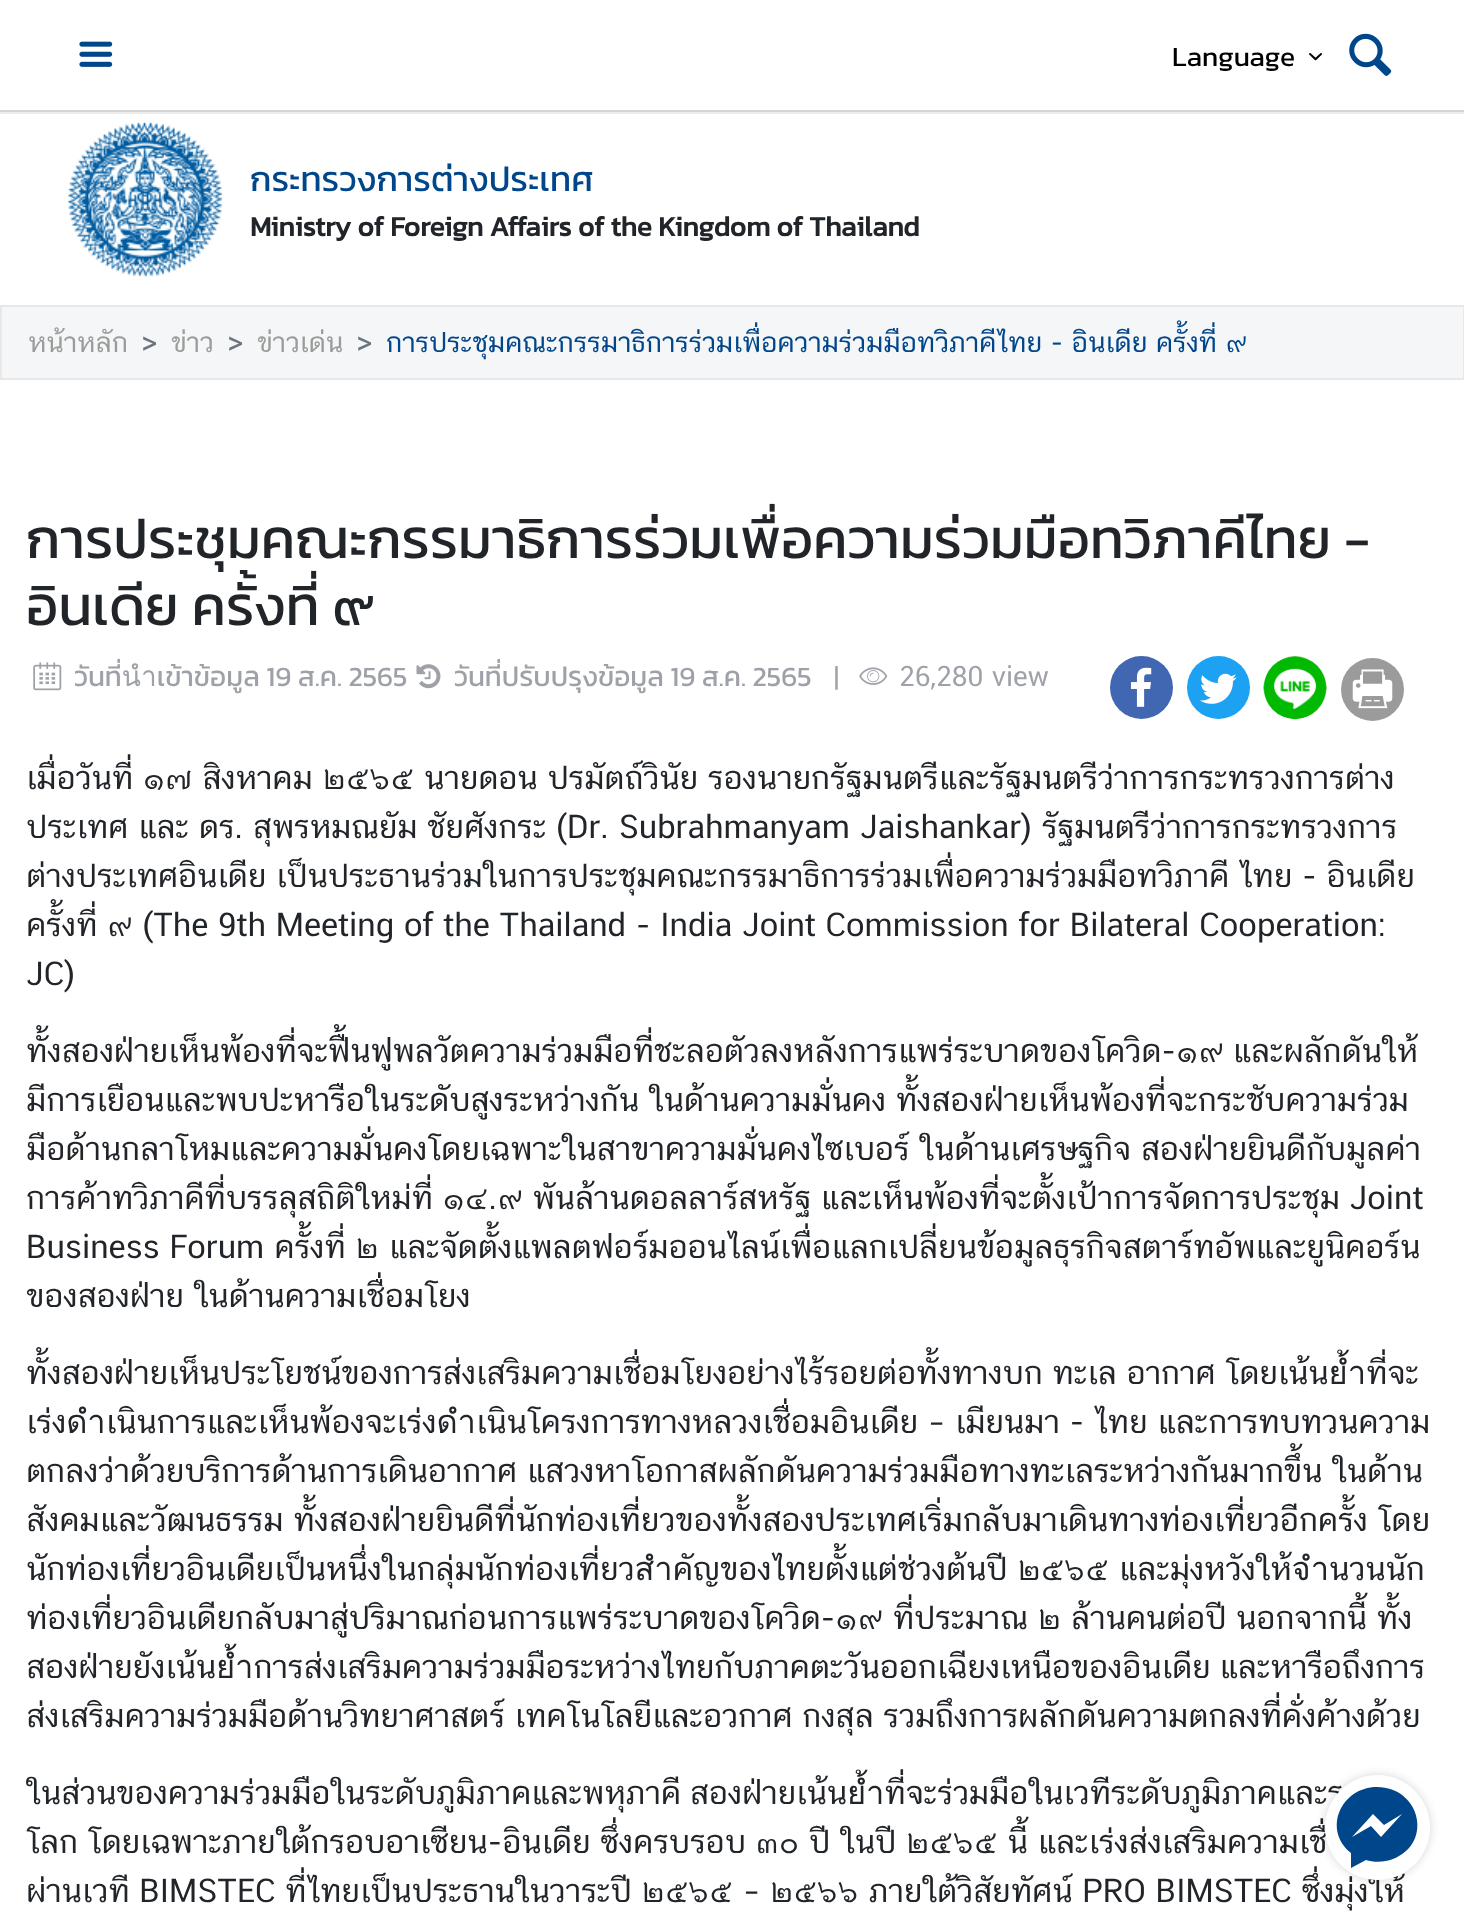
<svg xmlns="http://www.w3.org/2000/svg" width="1464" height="1914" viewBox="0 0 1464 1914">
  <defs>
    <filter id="blur1" x="-50%" y="-200%" width="200%" height="500%"><feGaussianBlur stdDeviation="5"/></filter>
  </defs>
  <rect width="100%" height="100%" fill="#ffffff"/>
  <image x="79" y="41" width="34" height="26" href="img1.png"/>
  <text x="1172" y="66" font-family="Kanit" font-size="28" fill="#000000">Language</text>
  <image x="1309" y="53" width="13" height="8" href="img2.png"/>
  <image x="1349" y="33" width="43" height="43" href="img3.png"/>
  <rect x="0" y="112" width="1464" height="2" fill="#ececed"/>
  <rect x="0" y="110" width="1464" height="2" fill="#d4d4d5"/>
  <image x="68" y="122" width="155" height="155" href="img4.png"/>
  <text x="250" y="191" font-family="Kanit" font-size="35" fill="#00468a">กระทรวงการต่างประเทศ</text>
  <text x="250" y="236" font-family="Kanit" font-size="28" font-weight="bold" fill="#212529">Ministry of Foreign Affairs of the Kingdom of Thailand</text>
  <rect x="1" y="306" width="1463" height="73" fill="#f5f6f7" stroke="#e8e8e9" stroke-width="2"/>
  <text x="28" y="352" font-family="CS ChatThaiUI" font-size="28" fill="#9b9b9b">หน้าหลัก</text>
  <text x="142" y="352" font-family="Kanit" font-size="28" fill="#6c757d">&gt;</text>
  <text x="171" y="352" font-family="CS ChatThaiUI" font-size="28" fill="#9b9b9b">ข่าว</text>
  <text x="228" y="352" font-family="Kanit" font-size="28" fill="#6c757d">&gt;</text>
  <text x="257" y="352" font-family="CS ChatThaiUI" font-size="28" fill="#9b9b9b">ข่าวเด่น</text>
  <text x="357" y="352" font-family="Kanit" font-size="28" fill="#6c757d">&gt;</text>
  <text x="386" y="352" font-family="CS ChatThaiUI" font-size="28" fill="#00468a">การประชุมคณะกรรมาธิการร่วมเพื่อความร่วมมือทวิภาคีไทย - อินเดีย ครั้งที่ ๙</text>
  <text x="26" y="558" font-family="Kanit" font-size="56" fill="#212529">การประชุมคณะกรรมาธิการร่วมเพื่อความร่วมมือทวิภาคีไทย -</text>
  <text x="26" y="625" font-family="Kanit" font-size="56" fill="#212529">อินเดีย ครั้งที่ ๙</text>
  <image x="33" y="662" width="29" height="29" href="img5.png"/>
  <text x="74" y="686" font-family="Kanit" font-size="28" fill="#9fa1a9">วันที่นำเข้าข้อมูล 19 ส.ค. 2565</text>
  <image x="416" y="664" width="25" height="25" href="img6.png"/>
  <text x="454" y="686" font-family="Kanit" font-size="28" fill="#9fa1a9">วันที่ปรับปรุงข้อมูล 19 ส.ค. 2565</text>
  <text x="833" y="686" font-family="CS ChatThaiUI" font-size="28" fill="#9fa1a9">|</text>
  <image x="859" y="667" width="29" height="18" href="img7.png"/>
  <text x="899" y="686" font-family="CS ChatThaiUI" font-size="28" fill="#9fa1a9">26,280 view</text>
  <circle cx="1141.5" cy="687.5" r="31.5" fill="#4267b2"/>
  <image x="1130" y="667" width="22" height="40" href="img8.png"/>
  <circle cx="1218.5" cy="687.5" r="31.5" fill="#1da1f2"/>
  <image x="1200" y="673" width="37" height="31" href="img9.png"/>
  <circle cx="1295.5" cy="687.5" r="31.5" fill="#efefef"/>
  <image x="1263" y="656" width="64" height="64" href="img10.png"/>
  <circle cx="1372.5" cy="689.5" r="31.5" fill="#9b9b9b"/>
  <image x="1352" y="669" width="41" height="40" href="img11.png"/>
  <text x="26" y="789" font-family="CS ChatThaiUI" font-size="32.65" fill="#212529">เมื่อวันที่ ๑๗ สิงหาคม ๒๕๖๕ นายดอน ปรมัตถ์วินัย รองนายกรัฐมนตรีและรัฐมนตรีว่าการกระทรวงการต่าง</text>
  <text x="26" y="838" font-family="CS ChatThaiUI" font-size="32.65" fill="#212529">ประเทศ และ ดร. สุพรหมณยัม ชัยศังกระ (Dr. Subrahmanyam Jaishankar) รัฐมนตรีว่าการกระทรวงการ</text>
  <text x="26" y="887" font-family="CS ChatThaiUI" font-size="32.65" fill="#212529">ต่างประเทศอินเดีย เป็นประธานร่วมในการประชุมคณะกรรมาธิการร่วมเพื่อความร่วมมือทวิภาคี ไทย - อินเดีย</text>
  <text x="26" y="936" font-family="CS ChatThaiUI" font-size="32.65" fill="#212529">ครั้งที่ ๙ (The 9th Meeting of the Thailand - India Joint Commission for Bilateral Cooperation:</text>
  <text x="26" y="985" font-family="CS ChatThaiUI" font-size="32.65" fill="#212529">JC)</text>
  <text x="26" y="1062" word-spacing="-1" font-family="CS ChatThaiUI" font-size="32.65" fill="#212529">ทั้งสองฝ่ายเห็นพ้องที่จะฟื้นฟูพลวัตความร่วมมือที่ชะลอตัวลงหลังการแพร่ระบาดของโควิด-๑๙ และผลักดันให้</text>
  <text x="26" y="1111" font-family="CS ChatThaiUI" font-size="32.65" fill="#212529">มีการเยือนและพบปะหารือในระดับสูงระหว่างกัน ในด้านความมั่นคง ทั้งสองฝ่ายเห็นพ้องที่จะกระชับความร่วม</text>
  <text x="26" y="1160" font-family="CS ChatThaiUI" font-size="32.65" fill="#212529">มือด้านกลาโหมและความมั่นคงโดยเฉพาะในสาขาความมั่นคงไซเบอร์ ในด้านเศรษฐกิจ สองฝ่ายยินดีกับมูลค่า</text>
  <text x="26" y="1209" font-family="CS ChatThaiUI" font-size="32.65" fill="#212529">การค้าทวิภาคีที่บรรลุสถิติใหม่ที่ ๑๔.๙ พันล้านดอลลาร์สหรัฐ และเห็นพ้องที่จะตั้งเป้าการจัดการประชุม Joint</text>
  <text x="26" y="1258" font-family="CS ChatThaiUI" font-size="32.65" fill="#212529">Business Forum ครั้งที่ ๒ และจัดตั้งแพลตฟอร์มออนไลน์เพื่อแลกเปลี่ยนข้อมูลธุรกิจสตาร์ทอัพและยูนิคอร์น</text>
  <text x="26" y="1307" font-family="CS ChatThaiUI" font-size="32.65" fill="#212529">ของสองฝ่าย ในด้านความเชื่อมโยง</text>
  <text x="26" y="1384" font-family="CS ChatThaiUI" font-size="32.65" fill="#212529">ทั้งสองฝ่ายเห็นประโยชน์ของการส่งเสริมความเชื่อมโยงอย่างไร้รอยต่อทั้งทางบก ทะเล อากาศ โดยเน้นย้ำที่จะ</text>
  <text x="26" y="1433" font-family="CS ChatThaiUI" font-size="32.65" fill="#212529">เร่งดำเนินการและเห็นพ้องจะเร่งดำเนินโครงการทางหลวงเชื่อมอินเดีย – เมียนมา - ไทย และการทบทวนความ</text>
  <text x="26" y="1482" font-family="CS ChatThaiUI" font-size="32.65" fill="#212529">ตกลงว่าด้วยบริการด้านการเดินอากาศ แสวงหาโอกาสผลักดันความร่วมมือทางทะเลระหว่างกันมากขึ้น ในด้าน</text>
  <text x="26" y="1531" font-family="CS ChatThaiUI" font-size="32.65" fill="#212529">สังคมและวัฒนธรรม ทั้งสองฝ่ายยินดีที่นักท่องเที่ยวของทั้งสองประเทศเริ่มกลับมาเดินทางท่องเที่ยวอีกครั้ง โดย</text>
  <text x="26" y="1580" font-family="CS ChatThaiUI" font-size="32.65" fill="#212529">นักท่องเที่ยวอินเดียเป็นหนึ่งในกลุ่มนักท่องเที่ยวสำคัญของไทยตั้งแต่ช่วงต้นปี ๒๕๖๕ และมุ่งหวังให้จำนวนนัก</text>
  <text x="26" y="1629" font-family="CS ChatThaiUI" font-size="32.65" fill="#212529">ท่องเที่ยวอินเดียกลับมาสู่ปริมาณก่อนการแพร่ระบาดของโควิด-๑๙ ที่ประมาณ ๒ ล้านคนต่อปี นอกจากนี้ ทั้ง</text>
  <text x="26" y="1678" word-spacing="-1" font-family="CS ChatThaiUI" font-size="32.65" fill="#212529">สองฝ่ายยังเน้นย้ำการส่งเสริมความร่วมมือระหว่างไทยกับภาคตะวันออกเฉียงเหนือของอินเดีย และหารือถึงการ</text>
  <text x="26" y="1727" font-family="CS ChatThaiUI" font-size="32.65" fill="#212529">ส่งเสริมความร่วมมือด้านวิทยาศาสตร์ เทคโนโลยีและอวกาศ กงสุล รวมถึงการผลักดันความตกลงที่คั่งค้างด้วย</text>
  <text x="26" y="1804" word-spacing="-1" font-family="CS ChatThaiUI" font-size="32.65" fill="#212529">ในส่วนของความร่วมมือในระดับภูมิภาคและพหุภาคี สองฝ่ายเน้นย้ำที่จะร่วมมือในเวทีระดับภูมิภาคและร</text>
  <text x="26" y="1853" font-family="CS ChatThaiUI" font-size="32.65" fill="#212529">โลก โดยเฉพาะภายใต้กรอบอาเซียน-อินเดีย ซึ่งครบรอบ ๓๐ ปี ในปี ๒๕๖๕ นี้ และเร่งส่งเสริมความเชื่</text>
  <text x="26" y="1902" font-family="CS ChatThaiUI" font-size="32.65" fill="#212529">ผ่านเวที BIMSTEC ที่ไทยเป็นประธานในวาระปี ๒๕๖๕ – ๒๕๖๖ ภายใต้วิสัยทัศน์ PRO BIMSTEC ซึ่งมุ่งให้</text>
  <rect x="1325" y="1775" width="105" height="105" rx="52.5" fill="#000000" fill-opacity="0.16" filter="url(#blur1)"/>
  <circle cx="1377.5" cy="1827.5" r="52.5" fill="#ffffff"/>
  <path d="M1377 1787C1341 1787 1322 1830 1351 1853V1868L1366 1860C1375 1863 1385 1862 1393 1859C1434 1843 1420 1787 1377 1787ZM1381 1837L1371 1826L1352 1837L1373 1814L1384 1825L1402 1814Z" fill="#00468a"/>
</svg>
